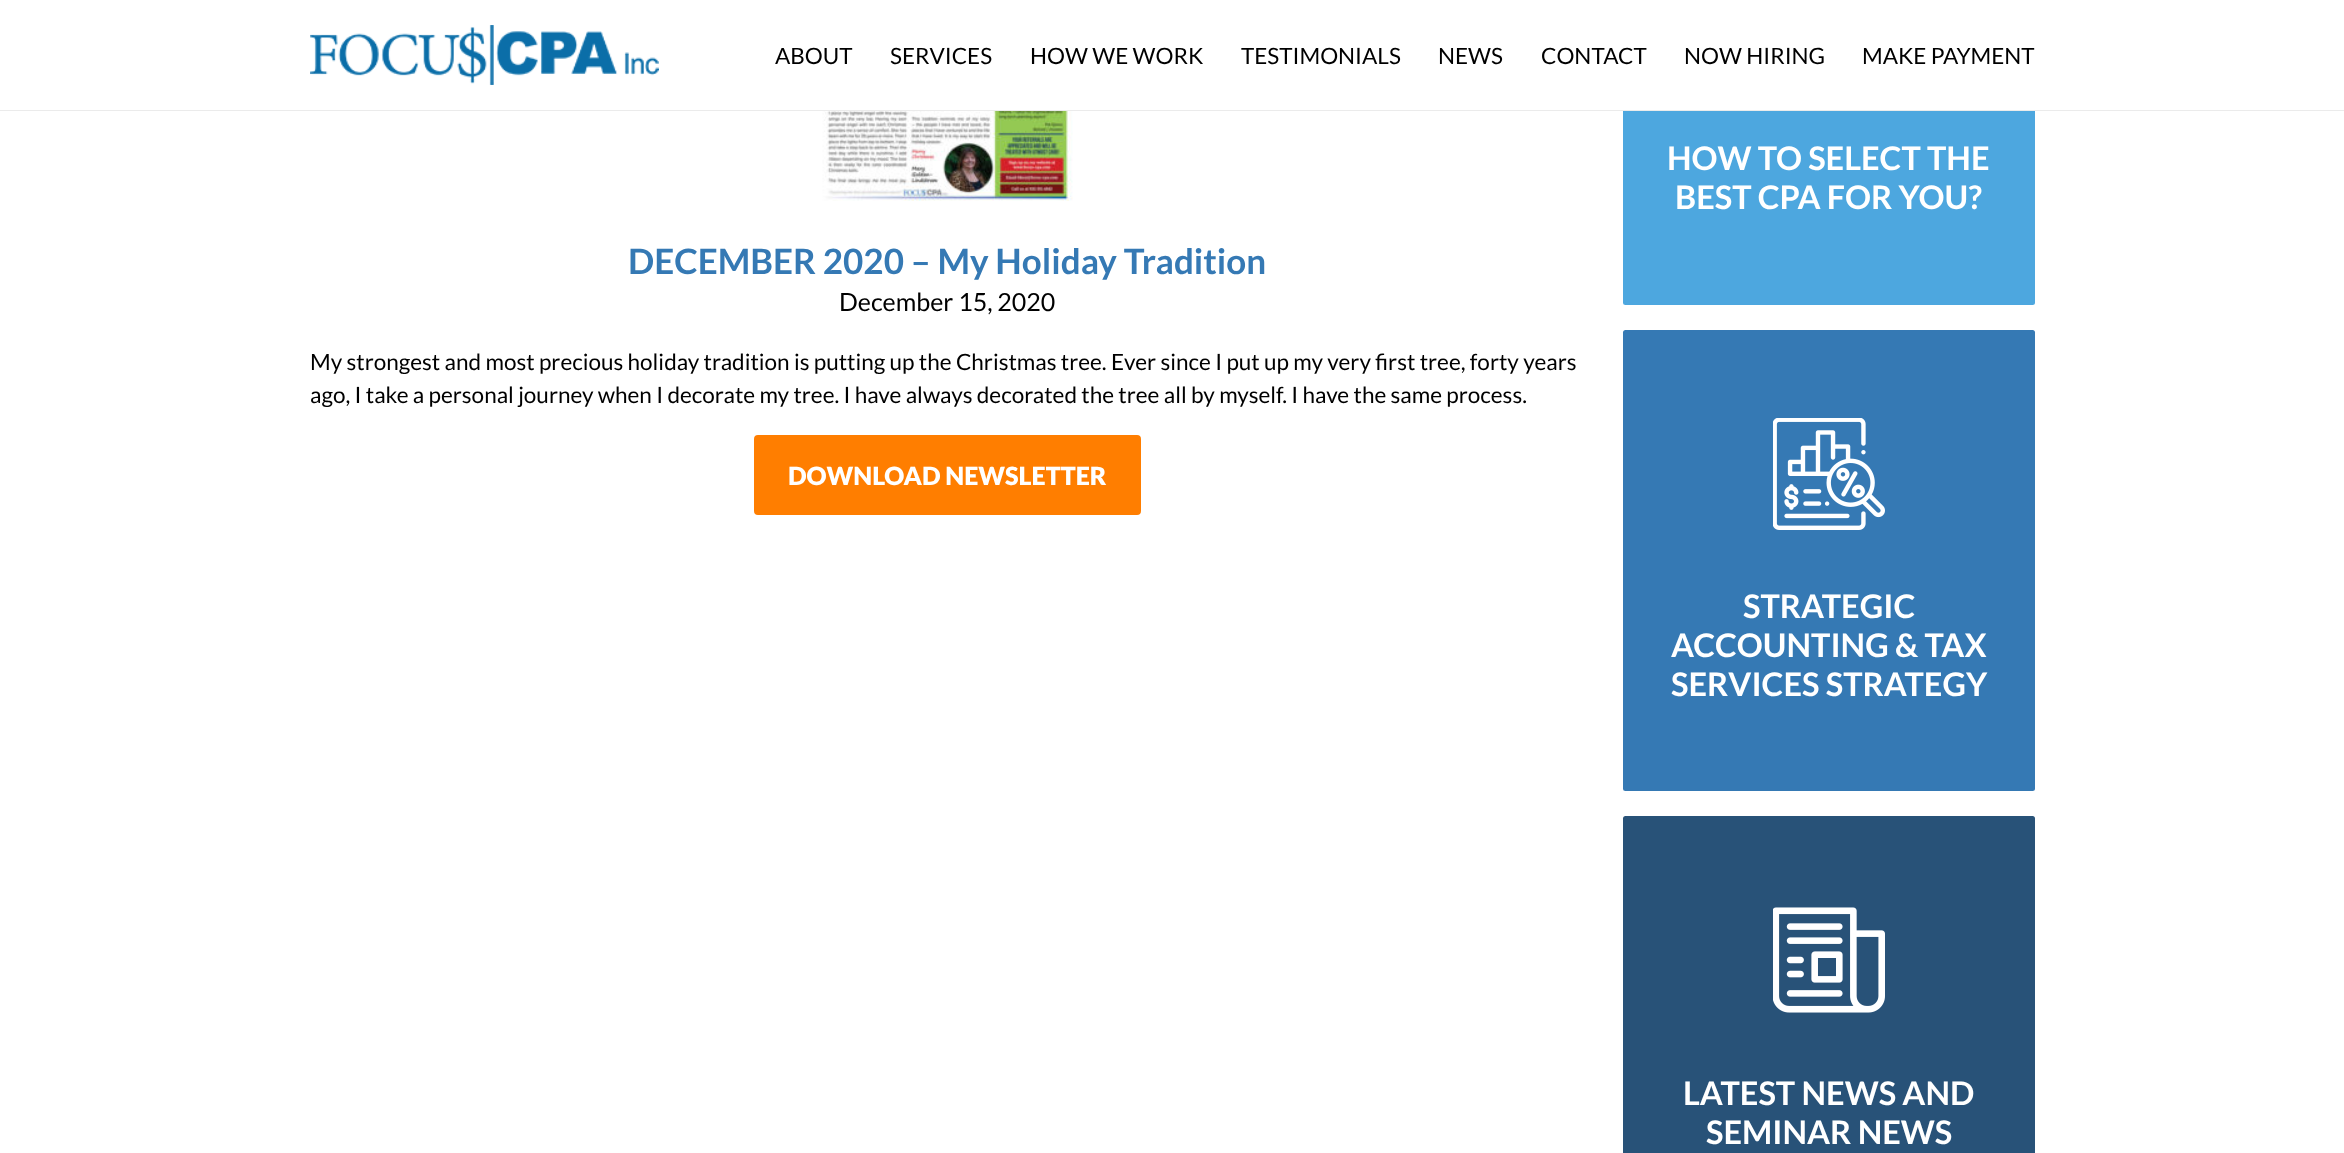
<svg xmlns="http://www.w3.org/2000/svg" width="2344" height="1153" viewBox="0 0 2344 1153">
  <rect width="100%" height="100%" fill="#ffffff"/>
  <rect x="1623" y="-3" width="412" height="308" rx="2.5" fill="#4da7df"/>
  <rect x="1623" y="0" width="412" height="110" fill="#ffffff"/>
  <rect x="0" y="110" width="2344" height="1" fill="#ebebeb"/>
  <image x="310" y="25" width="349" height="60" href="img1.png"/>
  <text x="775" y="64" font-family="Lato" font-size="22.5" fill="#000000">ABOUT</text>
  <text x="890" y="64" font-family="Lato" font-size="22.5" fill="#000000">SERVICES</text>
  <text x="1030" y="64" font-family="Lato" font-size="22.5" fill="#000000">HOW WE WORK</text>
  <text x="1241" y="64" font-family="Lato" font-size="22.5" fill="#000000">TESTIMONIALS</text>
  <text x="1438" y="64" font-family="Lato" font-size="22.5" fill="#000000">NEWS</text>
  <text x="1541" y="64" font-family="Lato" font-size="22.5" fill="#000000">CONTACT</text>
  <text x="1684" y="64" font-family="Lato" font-size="22.5" fill="#000000">NOW HIRING</text>
  <text x="1862" y="64" font-family="Lato" font-size="22.5" fill="#000000">MAKE PAYMENT</text>
  <image x="822" y="111" width="251" height="90" href="img2.png"/>
  <text x="628" y="274" font-family="Lato" font-size="35" font-weight="bold" fill="#3579b4">DECEMBER 2020 – My Holiday Tradition</text>
  <text x="839" y="311" font-family="Lato" font-size="25" fill="#000000">December 15, 2020</text>
  <text x="310" y="370" font-family="Lato" font-size="22.5" fill="#000000">My strongest and most precious holiday tradition is putting up the Christmas tree. Ever since I put up my very first tree, forty years</text>
  <text x="310" y="403" font-family="Lato" font-size="22.5" fill="#000000">ago, I take a personal journey when I decorate my tree. I have always decorated the tree all by myself. I have the same process.</text>
  <rect x="755.5" y="436.5" width="384" height="77" rx="2.5" fill="#ff7e00" stroke="#ff7e00" stroke-width="3"/>
  <text x="788" y="485" font-family="Lato" font-size="25" font-weight="900" fill="#ffffff">DOWNLOAD NEWSLETTER</text>
  <text x="1667" y="170" font-family="Lato" font-size="32.5" font-weight="bold" fill="#ffffff">HOW TO SELECT THE</text>
  <text x="1675" y="209" font-family="Lato" font-size="32.5" font-weight="bold" fill="#ffffff">BEST CPA FOR YOU?</text>
  <rect x="1623" y="330" width="412" height="461" rx="2.5" fill="#3579b4"/>
  <image x="1773" y="418" width="112" height="112" href="img3.png"/>
  <text x="1743" y="618" font-family="Lato" font-size="32.5" font-weight="bold" fill="#ffffff">STRATEGIC</text>
  <text x="1671" y="657" font-family="Lato" font-size="32.5" font-weight="bold" fill="#ffffff">ACCOUNTING &amp; TAX</text>
  <text x="1671" y="696" font-family="Lato" font-size="32.5" font-weight="bold" fill="#ffffff">SERVICES STRATEGY</text>
  <rect x="1623" y="816" width="412" height="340" rx="2.5" fill="#285278"/>
  <image x="1773" y="907" width="112" height="106" href="img4.png"/>
  <text x="1683" y="1105" font-family="Lato" font-size="32.5" font-weight="bold" fill="#ffffff">LATEST NEWS AND</text>
  <text x="1706" y="1144" font-family="Lato" font-size="32.5" font-weight="bold" fill="#ffffff">SEMINAR NEWS</text>
</svg>
